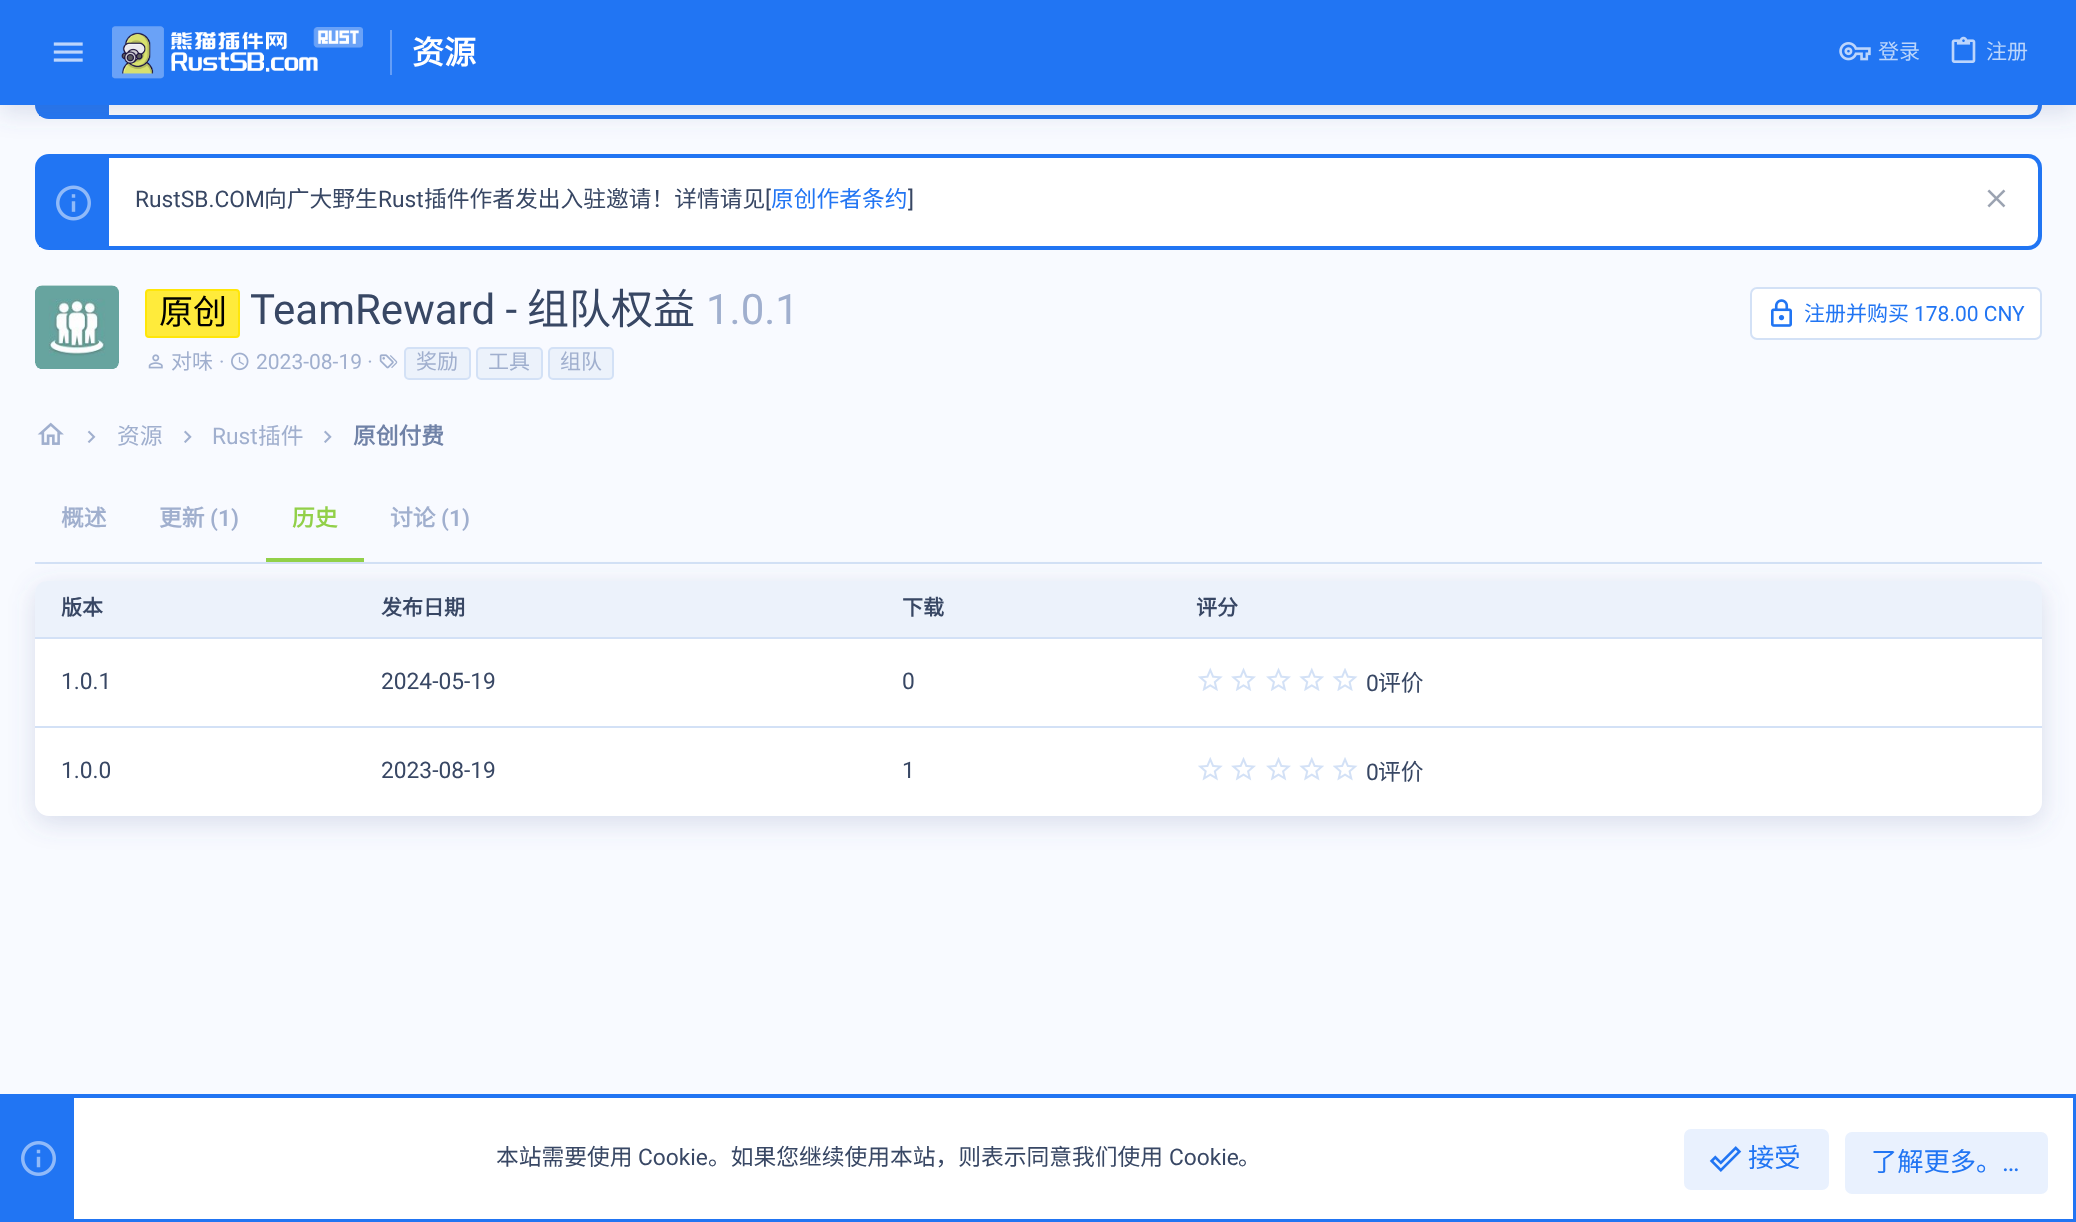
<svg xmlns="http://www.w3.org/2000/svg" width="2076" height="1222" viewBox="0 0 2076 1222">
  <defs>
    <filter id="blur1" x="-50%" y="-200%" width="200%" height="500%"><feGaussianBlur stdDeviation="13"/></filter>
  </defs>
  <rect width="100%" height="100%" fill="#f8faff"/>
  <rect x="37" y="30" width="2003" height="87" rx="12" fill="#ffffff" stroke="#2175f3" stroke-width="4"/>
  <rect x="39" y="105" width="70" height="11" fill="#2175f3"/>
  <rect x="0" y="7" width="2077" height="105" fill="#586a99" fill-opacity="0.2" filter="url(#blur1)"/>
  <rect x="0" y="0" width="2076" height="105" fill="#2175f3"/>
  <image x="53" y="42" width="30" height="20" href="img1.png"/>
  <image x="112" y="26" width="251" height="53" href="img2.png"/>
  <rect x="390" y="30" width="2" height="45" fill="#649ef7"/>
  <text x="412" y="64" font-family="Noto Sans CJK SC" font-size="32" font-weight="bold" fill="#ffffff">资源</text>
  <image x="1839" y="42" width="32" height="19" href="img3.png"/>
  <text x="1878" y="59" font-family="Noto Sans CJK SC" font-size="21" fill="#bcd6fb">登录</text>
  <image x="1951" y="36" width="25" height="27" href="img4.png"/>
  <text x="1986" y="59" font-family="Noto Sans CJK SC" font-size="21" fill="#bcd6fb">注册</text>
  <rect x="37" y="156" width="2003" height="92" rx="12" fill="#ffffff" stroke="#2175f3" stroke-width="4"/>
  <rect x="39" y="158" width="70" height="89" fill="#2175f3"/>
  <image x="56" y="185" width="35" height="36" href="img5.png"/>
  <text x="135" y="207" font-family="Roboto" font-size="22.75" fill="#384764">RustSB.COM</text>
  <text x="264" y="207" font-family="Noto Sans CJK SC" font-size="22.75" fill="#384764">向广大野生</text>
  <text x="378" y="207" font-family="Roboto" font-size="22.75" fill="#384764">Rust</text>
  <text x="424" y="207" font-family="Noto Sans CJK SC" font-size="22.75" fill="#384764">插件作者发出入驻邀请！详情请见</text>
  <text x="765" y="207" font-family="Roboto" font-size="22.75" fill="#384764">[</text>
  <text x="771" y="207" font-family="Noto Sans CJK SC" font-size="22.75" fill="#2175f3">原创作者条约</text>
  <text x="908" y="207" font-family="Roboto" font-size="22.75" fill="#384764">]</text>
  <image x="1987" y="189" width="19" height="19" href="img6.png"/>
  <rect x="35" y="285" width="84" height="84" rx="7" fill="#ffffff"/>
  <image x="35" y="285" width="84" height="84" href="img7.png"/>
  <rect x="146" y="290" width="93" height="47" rx="3" fill="#ffeb3b" stroke="#ffe608" stroke-width="2"/>
  <text x="159" y="324" font-family="Noto Sans CJK SC" font-size="34" fill="#000000">原创</text>
  <text x="250" y="324" font-family="Roboto" font-size="42" fill="#384764">TeamReward -</text>
  <text x="527" y="324" font-family="Noto Sans CJK SC" font-size="42" fill="#384764">组队权益</text>
  <text x="706" y="324" font-family="Roboto" font-size="42" fill="#a0afce">1.0.1</text>
  <rect x="1751" y="288" width="290" height="51" rx="6" fill="#ffffff" stroke="#d3e1f6" stroke-width="2"/>
  <image x="1771" y="299" width="21" height="28" href="img8.png"/>
  <text x="1804" y="321" font-family="Noto Sans CJK SC" font-size="21" fill="#2175f3">注册并购买</text>
  <text x="1914" y="321" font-family="Roboto" font-size="21" fill="#2175f3">178.00 CNY</text>
  <image x="148" y="354" width="15" height="15" href="img9.png"/>
  <text x="171" y="369" font-family="Noto Sans CJK SC" font-size="21" fill="#a0afce">对味</text>
  <text x="219" y="369" font-family="Roboto" font-size="21" fill="#a0afce">·</text>
  <image x="231" y="352" width="18" height="19" href="img10.png"/>
  <text x="256" y="369" font-family="Roboto" font-size="21" fill="#a0afce">2023-08-19 ·</text>
  <image x="379" y="354" width="19" height="15" href="img11.png"/>
  <rect x="405" y="348" width="65" height="31" rx="4" fill="#ecf2fb" stroke="#d3e1f6" stroke-width="2"/>
  <text x="416" y="369" font-family="Noto Sans CJK SC" font-size="21" fill="#a0afce">奖励</text>
  <rect x="477" y="348" width="65" height="31" rx="4" fill="#ecf2fb" stroke="#d3e1f6" stroke-width="2"/>
  <text x="488" y="369" font-family="Noto Sans CJK SC" font-size="21" fill="#a0afce">工具</text>
  <rect x="549" y="348" width="64" height="31" rx="4" fill="#ecf2fb" stroke="#d3e1f6" stroke-width="2"/>
  <text x="560" y="369" font-family="Noto Sans CJK SC" font-size="21" fill="#a0afce">组队</text>
  <image x="37" y="422" width="27" height="23" href="img12.png"/>
  <image x="87" y="430" width="9" height="13" href="img13.png"/>
  <text x="117" y="444" font-family="Noto Sans CJK SC" font-size="22.75" fill="#a0afce">资源</text>
  <image x="184" y="430" width="8" height="13" href="img14.png"/>
  <text x="212" y="444" font-family="Roboto" font-size="22.75" fill="#a0afce">Rust</text>
  <text x="258" y="444" font-family="Noto Sans CJK SC" font-size="22.75" fill="#a0afce">插件</text>
  <image x="324" y="430" width="8" height="13" href="img14.png"/>
  <text x="353" y="444" font-family="Noto Sans CJK SC" font-size="22.75" font-weight="bold" fill="#7082a7">原创付费</text>
  <rect x="35" y="562" width="2007" height="2" fill="#d3e1f6"/>
  <text x="61" y="526" font-family="Noto Sans CJK SC" font-size="22.75" font-weight="bold" fill="#a0afce">概述</text>
  <text x="159" y="526" font-family="Noto Sans CJK SC" font-size="22.75" font-weight="bold" fill="#a0afce">更新</text>
  <text x="210" y="526" font-family="Roboto" font-size="22.75" font-weight="600" fill="#a0afce">(1)</text>
  <rect x="35" y="588" width="2007" height="235" rx="14" fill="#586a99" fill-opacity="0.2" filter="url(#blur1)"/>
  <rect x="266" y="558" width="98" height="4" fill="#92d049"/>
  <text x="292" y="526" font-family="Noto Sans CJK SC" font-size="22.75" font-weight="bold" fill="#92d049">历史</text>
  <text x="390" y="526" font-family="Noto Sans CJK SC" font-size="22.75" font-weight="bold" fill="#a0afce">讨论</text>
  <text x="441" y="526" font-family="Roboto" font-size="22.75" font-weight="600" fill="#a0afce">(1)</text>
  <rect x="35" y="581" width="2007" height="235" rx="14" fill="#ffffff"/>
  <path d="M47 581H355V639H35V593C35 586.5 40.5 581 47 581Z" fill="#ecf2fb"/>
  <rect x="35" y="637" width="1134" height="2" fill="#d3e1f6"/>
  <text x="61" y="615" font-family="Noto Sans CJK SC" font-size="21" font-weight="bold" fill="#384764">版本</text>
  <rect x="355" y="581" width="814" height="56" fill="#ecf2fb"/>
  <text x="381" y="615" font-family="Noto Sans CJK SC" font-size="21" font-weight="bold" fill="#384764">发布日期</text>
  <text x="902" y="615" font-family="Noto Sans CJK SC" font-size="21" font-weight="bold" fill="#384764">下载</text>
  <path d="M1169 581H2030C2036.5 581 2042 586.5 2042 593V639H1169Z" fill="#ecf2fb"/>
  <rect x="1169" y="637" width="873" height="2" fill="#d3e1f6"/>
  <text x="1196" y="615" font-family="Noto Sans CJK SC" font-size="21" font-weight="bold" fill="#384764">评分</text>
  <rect x="35" y="726" width="2007" height="2" fill="#d3e1f6"/>
  <text x="61" y="689" font-family="Roboto" font-size="22.75" fill="#384764">1.0.1</text>
  <text x="381" y="689" font-family="Roboto" font-size="22.75" fill="#384764">2024-05-19</text>
  <text x="902" y="689" font-family="Roboto" font-size="22.75" fill="#384764">0</text>
  <image x="1198" y="667" width="25" height="24" href="img15.png"/>
  <image x="1231" y="667" width="25" height="24" href="img16.png"/>
  <image x="1266" y="667" width="25" height="24" href="img16.png"/>
  <image x="1299" y="667" width="25" height="24" href="img17.png"/>
  <image x="1332" y="668" width="26" height="23" href="img18.png"/>
  <text x="1366" y="691" font-family="Roboto" font-size="22.75" fill="#384764">0</text>
  <text x="1378" y="691" font-family="Noto Sans CJK SC" font-size="22.75" fill="#384764">评价</text>
  <text x="61" y="778" font-family="Roboto" font-size="22.75" fill="#384764">1.0.0</text>
  <text x="381" y="778" font-family="Roboto" font-size="22.75" fill="#384764">2023-08-19</text>
  <text x="902" y="778" font-family="Roboto" font-size="22.75" fill="#384764">1</text>
  <image x="1198" y="757" width="25" height="24" href="img19.png"/>
  <image x="1231" y="757" width="25" height="24" href="img20.png"/>
  <image x="1266" y="757" width="25" height="24" href="img20.png"/>
  <image x="1299" y="757" width="25" height="24" href="img21.png"/>
  <image x="1333" y="757" width="25" height="24" href="img22.png"/>
  <text x="1366" y="780" font-family="Roboto" font-size="22.75" fill="#384764">0</text>
  <text x="1378" y="780" font-family="Noto Sans CJK SC" font-size="22.75" fill="#384764">评价</text>
  <rect x="74" y="1098" width="1999" height="121" fill="#ffffff"/>
  <rect x="2" y="1096" width="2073" height="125" fill="none" stroke="#2175f3" stroke-width="4"/>
  <rect x="4" y="1098" width="70" height="121" fill="#2175f3"/>
  <image x="21" y="1141" width="35" height="35" href="img23.png"/>
  <text x="496" y="1165" font-family="Noto Sans CJK SC" font-size="22.75" fill="#384764">本站需要使用</text>
  <text x="638" y="1165" font-family="Roboto" font-size="22.75" fill="#384764">Cookie</text>
  <text x="708" y="1165" font-family="Noto Sans CJK SC" font-size="22.75" fill="#384764">。如果您继续使用本站，则表示同意我们使用</text>
  <text x="1169" y="1165" font-family="Roboto" font-size="22.75" fill="#384764">Cookie</text>
  <text x="1238" y="1165" font-family="Noto Sans CJK SC" font-size="22.75" fill="#384764">。</text>
  <rect x="1684" y="1129" width="145" height="61" rx="7" fill="#e9f1fe"/>
  <image x="1709" y="1146" width="33" height="26" href="img24.png"/>
  <text x="1748" y="1167" font-family="Noto Sans CJK SC" font-size="26.25" fill="#2175f3">接受</text>
  <rect x="1845" y="1132" width="203" height="62" rx="7" fill="#e9f1fe"/>
  <text x="1871" y="1171" font-family="Noto Sans CJK SC" font-size="26.25" fill="#2175f3">了解更多。</text>
  <text x="2002" y="1171" font-family="Roboto" font-size="26.25" fill="#2175f3">…</text>
</svg>
